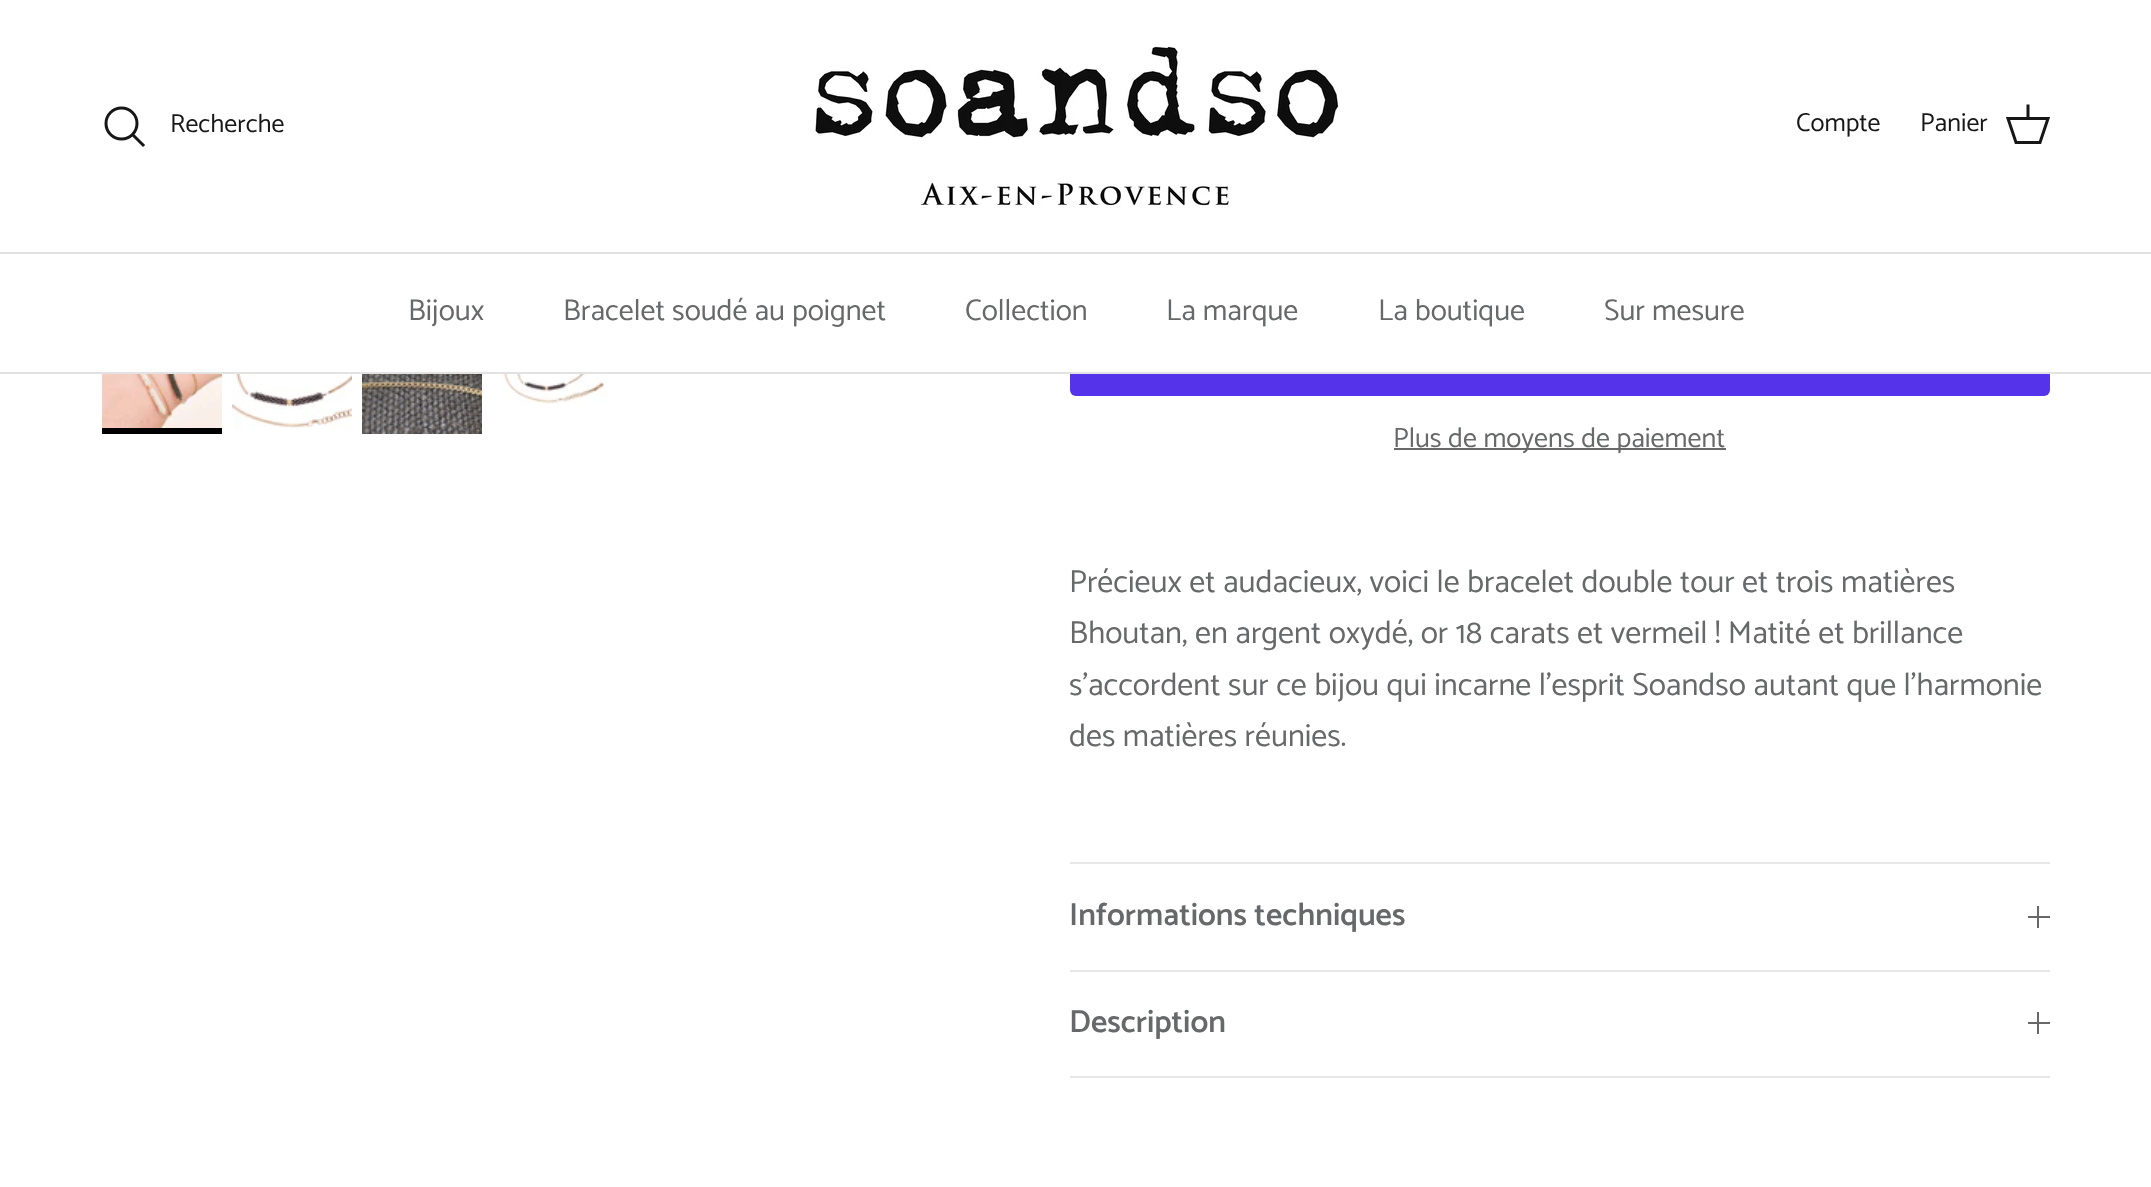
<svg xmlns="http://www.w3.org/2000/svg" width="2151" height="1187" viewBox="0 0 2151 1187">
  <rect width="100%" height="100%" fill="#ffffff"/>
  <rect x="0" y="252" width="2151" height="2" fill="#e2e2e2"/>
  <circle cx="121.5" cy="123.5" r="15.5" fill="none" stroke="#171717" stroke-width="3"/>
  <text x="170" y="132" font-family="Catamaran" font-size="26" fill="#171717">Recherche</text>
  <path d="M134 136L143 145" fill="none" stroke="#171717" stroke-width="3" stroke-linecap="square"/>
  <image x="815" y="44" width="525" height="164" href="img1.png"/>
  <text x="1796" y="131" font-family="Catamaran" font-size="26" fill="#171717">Compte</text>
  <text x="1920" y="131" font-family="Catamaran" font-size="26" fill="#171717">Panier</text>
  <path d="M2008 118.5H2048L2040 142.5H2016Z" fill="none" stroke="#171717" stroke-width="3"/>
  <path d="M2028 118V106" fill="none" stroke="#171717" stroke-width="3" stroke-linecap="square"/>
  <rect x="1070" y="300" width="980" height="96" rx="6" fill="#5433eb"/>
  <rect x="0" y="372" width="2151" height="2" fill="#e2e2e2"/>
  <rect x="1070" y="300" width="980" height="72" fill="#ffffff"/>
  <text x="408" y="320" font-family="Catamaran" font-size="30" fill="#676869">Bijoux</text>
  <text x="563" y="320" font-family="Catamaran" font-size="30" fill="#676869">Bracelet soudé au poignet</text>
  <text x="965" y="320" font-family="Catamaran" font-size="30" fill="#676869">Collection</text>
  <text x="1166" y="320" font-family="Catamaran" font-size="30" fill="#676869">La marque</text>
  <text x="1378" y="320" font-family="Catamaran" font-size="30" fill="#676869">La boutique</text>
  <text x="1604" y="320" font-family="Catamaran" font-size="30" fill="#676869">Sur mesure</text>
  <image x="102" y="374" width="120" height="54" href="img2.png"/>
  <rect x="102" y="428" width="120" height="6" fill="#000000"/>
  <image x="232" y="374" width="120" height="55" href="img3.png"/>
  <image x="362" y="374" width="120" height="60" href="img4.png"/>
  <image x="503" y="374" width="105" height="30" href="img5.png"/>
  <rect x="1394" y="448" width="332" height="2" fill="#676869"/>
  <text x="1393" y="447" font-family="Catamaran" font-size="28" fill="#676869">Plus de moyens de paiement</text>
  <text x="1069" y="592" font-family="Catamaran" font-size="32" fill="#676869">Précieux et audacieux, voici le bracelet double tour et trois matières</text>
  <text x="1069" y="643" font-family="Catamaran" font-size="32" fill="#676869">Bhoutan, en argent oxydé, or 18 carats et vermeil ! Matité et brillance</text>
  <text x="1069" y="695" font-family="Catamaran" font-size="32" fill="#676869">s'accordent sur ce bijou qui incarne l'esprit Soandso autant que l'harmonie</text>
  <text x="1069" y="746" font-family="Catamaran" font-size="32" fill="#676869">des matières réunies.</text>
  <rect x="1070" y="862" width="980" height="2" fill="#e8e8e9"/>
  <rect x="1070" y="970" width="980" height="2" fill="#e8e8e9"/>
  <text x="1069" y="925" font-family="Catamaran" font-size="32" font-weight="600" fill="#676869">Informations techniques</text>
  <rect x="2037" y="906" width="2" height="22" fill="#676869"/>
  <rect x="2028" y="916" width="22" height="2" fill="#676869"/>
  <rect x="1070" y="1076" width="980" height="2" fill="#e8e8e9"/>
  <text x="1069" y="1032" font-family="Catamaran" font-size="32" font-weight="600" fill="#676869">Description</text>
  <rect x="2037" y="1012" width="2" height="22" fill="#676869"/>
  <rect x="2028" y="1022" width="22" height="2" fill="#676869"/>
</svg>
